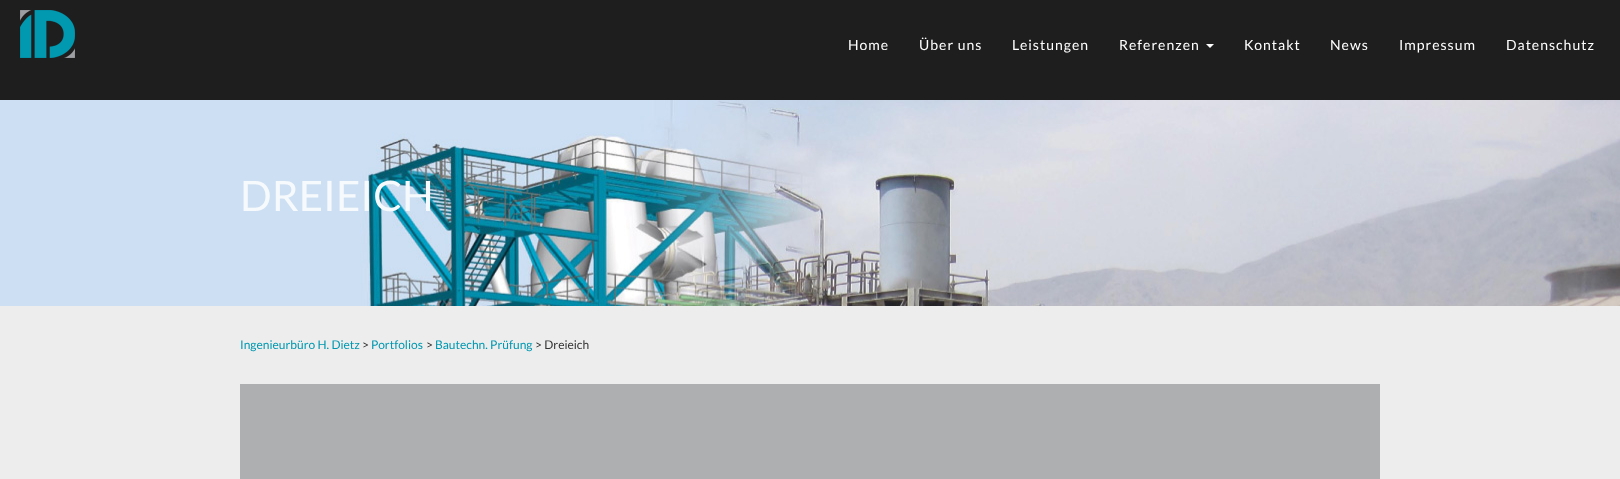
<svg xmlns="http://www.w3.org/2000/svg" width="1620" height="479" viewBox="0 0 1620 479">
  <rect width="100%" height="100%" fill="#ededed"/>
  <rect x="0" y="0" width="1620" height="100" fill="#1e1e1e"/>
  <image x="20" y="10" width="55" height="48" href="img1.png"/>
  <text x="848" y="50" font-family="Lato" font-size="14" letter-spacing="1" fill="#ffffff">Home</text>
  <text x="919" y="50" font-family="Lato" font-size="14" letter-spacing="1" fill="#ffffff">Über uns</text>
  <text x="1012" y="50" font-family="Lato" font-size="14" letter-spacing="1" fill="#ffffff">Leistungen</text>
  <text x="1119" y="50" font-family="Lato" font-size="14" letter-spacing="1" fill="#ffffff">Referenzen</text>
  <path d="M1206 44H1214L1210 48Z" fill="#ffffff"/>
  <text x="1244" y="50" font-family="Lato" font-size="14" letter-spacing="1" fill="#ffffff">Kontakt</text>
  <text x="1330" y="50" font-family="Lato" font-size="14" letter-spacing="1" fill="#ffffff">News</text>
  <text x="1399" y="50" font-family="Lato" font-size="14" letter-spacing="1" fill="#ffffff">Impressum</text>
  <text x="1506" y="50" font-family="Lato" font-size="14" letter-spacing="1" fill="#ffffff">Datenschutz</text>
  <image x="0" y="100" width="1620" height="206" href="img2.png"/>
  <text x="240" y="211" font-family="Lato" font-size="42" fill="#f7fafc">DREIEICH</text>
  <text x="240" y="349" font-family="Lato" font-size="12" fill="#0098b0">Ingenieurbüro H. Dietz</text>
  <text x="362" y="349" font-family="Lato" font-size="12" fill="#333333">&gt;</text>
  <text x="371" y="349" font-family="Lato" font-size="12" fill="#0098b0">Portfolios</text>
  <text x="426" y="349" font-family="Lato" font-size="12" fill="#333333">&gt;</text>
  <text x="435" y="349" font-family="Lato" font-size="12" fill="#0098b0">Bautechn. Prüfung</text>
  <text x="535" y="349" font-family="Lato" font-size="12" fill="#333333">&gt; Dreieich</text>
  <rect x="240" y="384" width="1140" height="95" fill="#aeafb1"/>
</svg>
